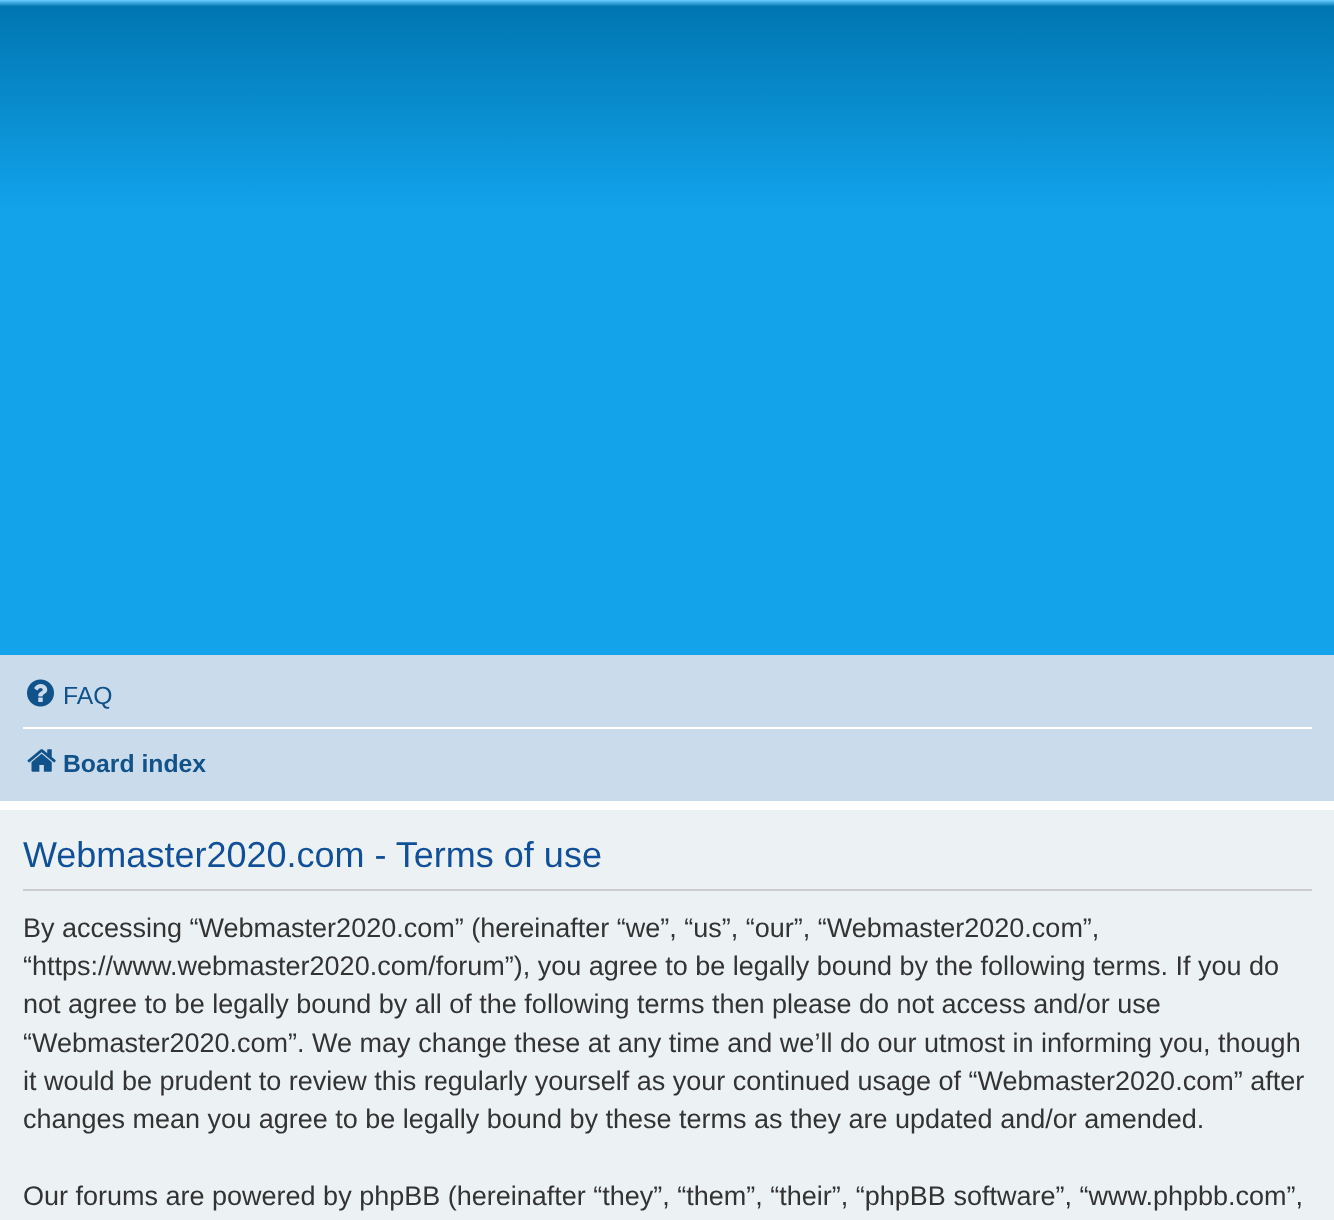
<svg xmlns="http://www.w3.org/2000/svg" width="1334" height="1220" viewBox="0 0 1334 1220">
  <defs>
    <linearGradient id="g1" gradientUnits="userSpaceOnUse" x1="667" y1="0" x2="667" y2="657"><stop offset="0" stop-color="#6aceff"/><stop offset="0.01" stop-color="#0076b1"/><stop offset="0.32" stop-color="#12a3eb"/><stop offset="1" stop-color="#12a3eb"/></linearGradient>
  </defs>
  <rect width="100%" height="100%" fill="#ffffff"/>
  <rect x="0" y="0" width="1334" height="655" fill="url(#g1)"/>
  <rect x="0" y="655" width="1334" height="146" fill="#cadceb"/>
  <image x="27" y="679" width="27" height="28" href="img1.png"/>
  <text x="63" y="704" font-family="Liberation Sans" font-size="24.75" fill="#105289">FAQ</text>
  <rect x="23" y="727" width="1289" height="2" fill="#ffffff"/>
  <image x="27" y="749" width="29" height="23" href="img2.png"/>
  <text x="63" y="772" font-family="Liberation Sans" font-size="24.75" font-weight="bold" fill="#105289">Board index</text>
  <rect x="0" y="810" width="1334" height="410" fill="#ecf1f3"/>
  <rect x="23" y="889" width="1289" height="2" fill="#cccccc"/>
  <text x="23" y="867" font-family="Liberation Sans" font-size="36" fill="#115098">Webmaster2020.com - Terms of use</text>
  <text x="23" y="937" font-family="Liberation Sans" font-size="27" fill="#333333">By accessing “Webmaster2020.com” (hereinafter “we”, “us”, “our”, “Webmaster2020.com”,</text>
  <text x="23" y="975" font-family="Liberation Sans" font-size="27" fill="#333333">“https://www.webmaster2020.com/forum”), you agree to be legally bound by the following terms. If you do</text>
  <text x="23" y="1013" font-family="Liberation Sans" font-size="27" fill="#333333">not agree to be legally bound by all of the following terms then please do not access and/or use</text>
  <text x="23" y="1052" font-family="Liberation Sans" font-size="27" fill="#333333">“Webmaster2020.com”. We may change these at any time and we’ll do our utmost in informing you, though</text>
  <text x="23" y="1090" font-family="Liberation Sans" font-size="27" fill="#333333">it would be prudent to review this regularly yourself as your continued usage of “Webmaster2020.com” after</text>
  <text x="23" y="1128" font-family="Liberation Sans" font-size="27" fill="#333333">changes mean you agree to be legally bound by these terms as they are updated and/or amended.</text>
  <text x="23" y="1205" font-family="Liberation Sans" font-size="27" fill="#333333">Our forums are powered by phpBB (hereinafter “they”, “them”, “their”, “phpBB software”, “www.phpbb.com”,</text>
</svg>
